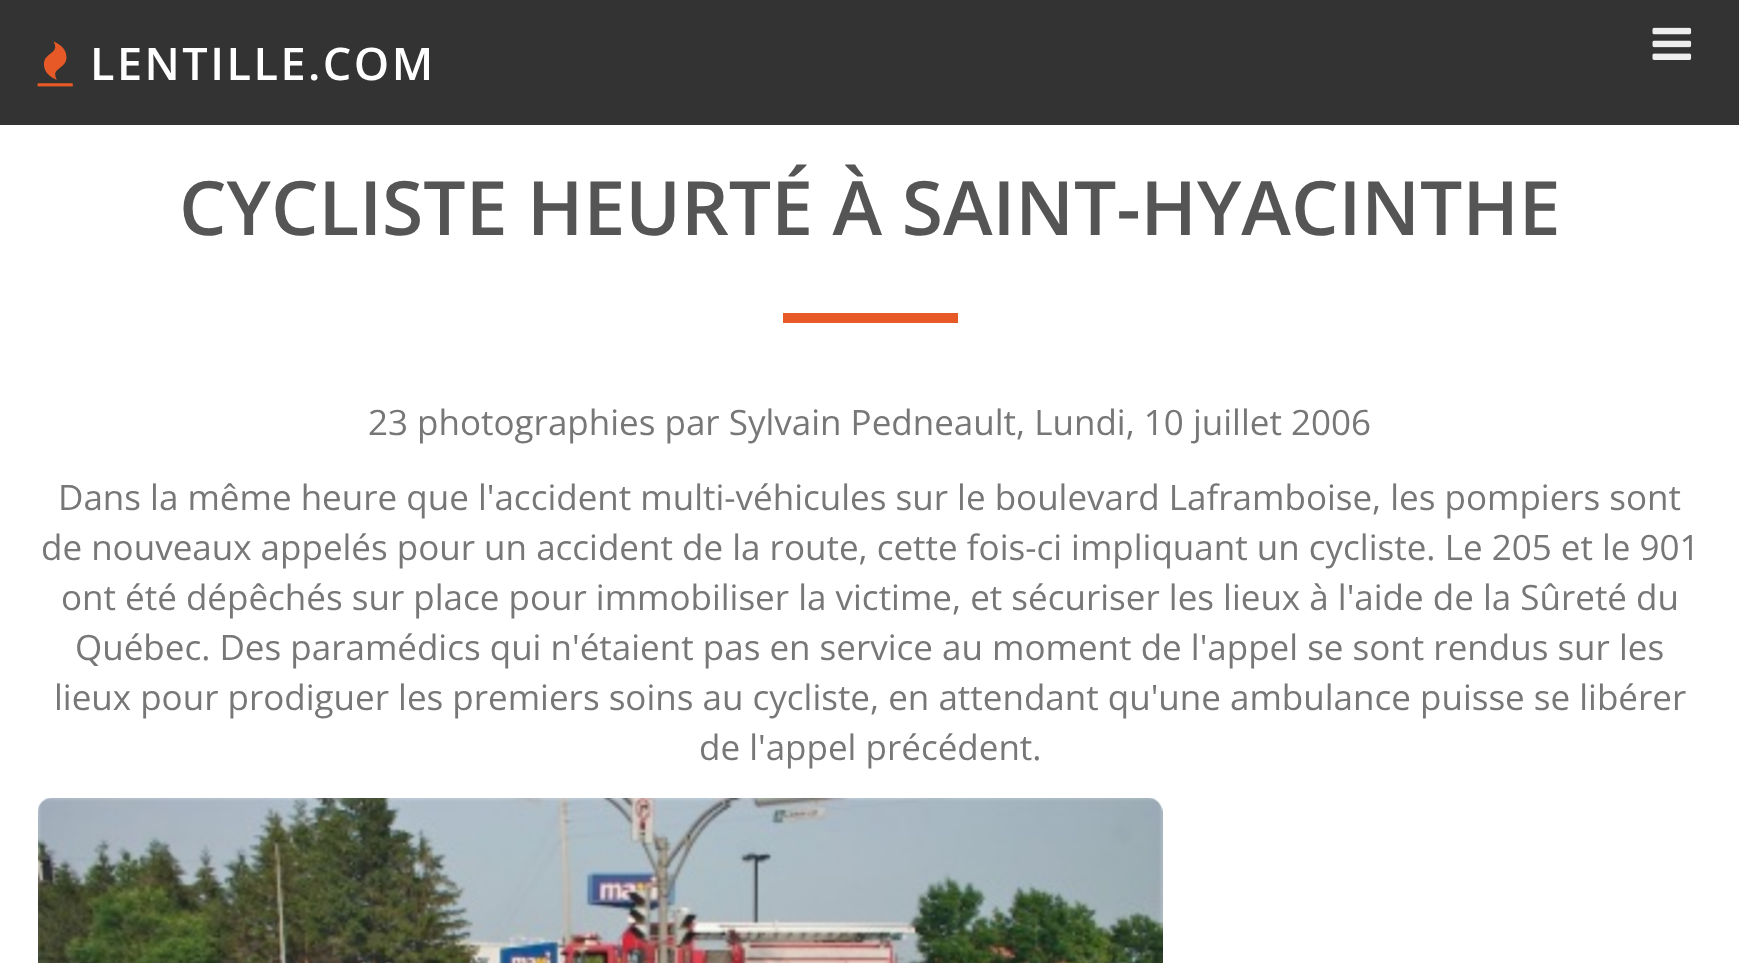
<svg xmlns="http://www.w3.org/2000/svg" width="1739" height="963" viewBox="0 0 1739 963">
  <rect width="100%" height="100%" fill="#ffffff"/>
  <rect x="0" y="0" width="1739" height="125" fill="#333333"/>
  <image x="1652" y="27" width="40" height="33" href="img1.png"/>
  <image x="37" y="41" width="36" height="46" href="img2.png"/>
  <text x="90" y="80" font-family="Open Sans" font-size="45" font-weight="600" letter-spacing="2.5" fill="#ffffff">LENTILLE.COM</text>
  <text x="179" y="235" font-family="Open Sans" font-size="75" font-weight="600" fill="#555555">CYCLISTE HEURTÉ À SAINT-HYACINTHE</text>
  <rect x="783" y="313" width="175" height="10" fill="#e75926"/>
  <text x="368" y="435" font-family="Open Sans" font-size="35" fill="#777777">23 photographies par Sylvain Pedneault, Lundi, 10 juillet 2006</text>
  <text x="58" y="510" font-family="Open Sans" font-size="35" fill="#777777">Dans la même heure que l'accident multi-véhicules sur le boulevard Laframboise, les pompiers sont</text>
  <text x="41" y="560" font-family="Open Sans" font-size="35" fill="#777777">de nouveaux appelés pour un accident de la route, cette fois-ci impliquant un cycliste. Le 205 et le 901</text>
  <text x="61" y="610" font-family="Open Sans" font-size="35" fill="#777777">ont été dépêchés sur place pour immobiliser la victime, et sécuriser les lieux à l'aide de la Sûreté du</text>
  <text x="75" y="660" font-family="Open Sans" font-size="35" fill="#777777">Québec. Des paramédics qui n'étaient pas en service au moment de l'appel se sont rendus sur les</text>
  <text x="54" y="710" font-family="Open Sans" font-size="35" fill="#777777">lieux pour prodiguer les premiers soins au cycliste, en attendant qu'une ambulance puisse se libérer</text>
  <text x="699" y="760" font-family="Open Sans" font-size="35" fill="#777777">de l'appel précédent.</text>
  <image x="38" y="798" width="1125" height="165" href="img3.png"/>
</svg>
